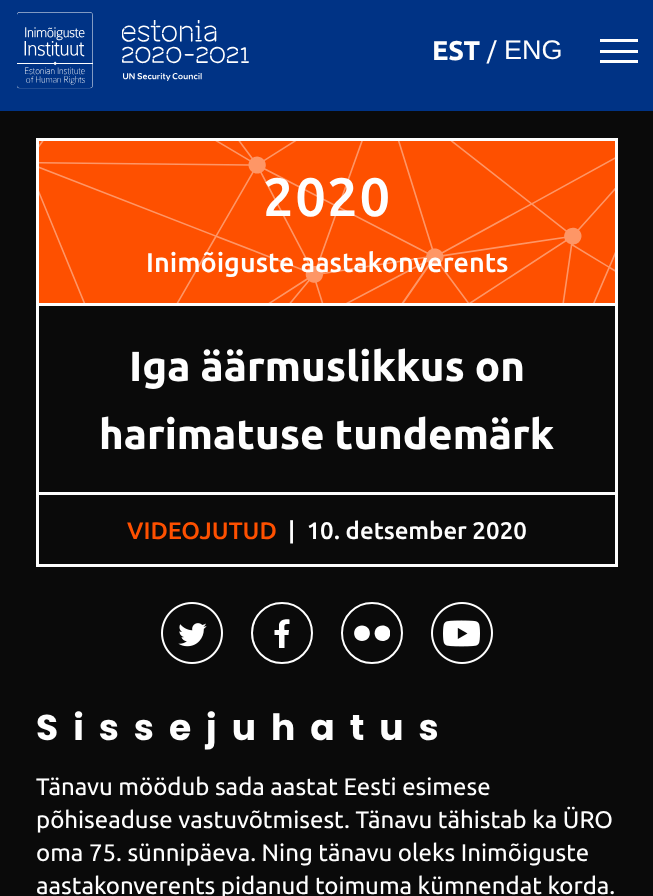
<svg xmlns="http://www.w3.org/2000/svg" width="653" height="896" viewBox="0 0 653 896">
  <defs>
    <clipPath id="clip1"><rect x="354" y="616" width="36" height="34"/></clipPath>
  </defs>
  <rect width="100%" height="100%" fill="#0a0a0a"/>
  <rect x="0" y="0" width="653" height="111" fill="#003385"/>
  <image x="17" y="12" width="76" height="77" href="img1.png"/>
  <image x="122" y="20" width="127" height="61" href="img2.png"/>
  <text x="432" y="60" font-family="Ubuntu" font-size="27" font-weight="bold" fill="#fefefe">EST</text>
  <text x="487" y="59" font-family="Ubuntu" font-size="24" fill="#fefefe">/</text>
  <text x="504" y="59" font-family="Liberation Sans" font-size="27" fill="#fefefe">ENG</text>
  <rect x="600" y="50" width="38" height="3" fill="#fefefe"/>
  <rect x="600" y="39" width="38" height="3" fill="#fefefe"/>
  <rect x="600" y="60" width="38" height="3" fill="#fefefe"/>
  <rect x="37.5" y="139.5" width="579" height="426" fill="none" stroke="#fefefe" stroke-width="3"/>
  <rect x="39" y="141" width="576" height="162" fill="#fe5000"/>
  <image x="39" y="141" width="576" height="162" href="img3.png"/>
  <text x="263" y="216" font-family="Ubuntu" font-size="54" font-weight="500" letter-spacing="1.5" fill="#fefefe">2020</text>
  <text x="146" y="272" font-family="Ubuntu" font-size="27" font-weight="500" fill="#fefefe">Inimõiguste aastakonverents</text>
  <rect x="39" y="303" width="576" height="3" fill="#fefefe"/>
  <text x="129" y="381" font-family="Ubuntu" font-size="42" font-weight="bold" fill="#fefefe">Iga äärmuslikkus on</text>
  <text x="99" y="449" font-family="Ubuntu" font-size="42" font-weight="bold" fill="#fefefe">harimatuse tundemärk</text>
  <rect x="39" y="492" width="576" height="3" fill="#fefefe"/>
  <text x="127" y="539" font-family="Ubuntu" font-size="24" font-weight="500" fill="#fe5000">VIDEOJUTUD</text>
  <text x="288" y="539" font-family="Ubuntu" font-size="24" font-weight="500" fill="#fefefe" xml:space="preserve">|  10. detsember 2020</text>
  <image x="161" y="602" width="62" height="62" href="img4.png"/>
  <circle cx="282" cy="633" r="30" fill="none" stroke="#ffffff" stroke-width="2"/>
  <path d="M287 624H289.5V619.5C285.5 619 280 619.5 279 624.5V630H274.5V635H279V648H284.5V635H288.5L289 630H284.5C284.5 627.5 283.5 624 287 624Z" fill="#ffffff"/>
  <path d="M362 625.5C351.5 625.5 351.5 641 362 641C372.5 641 372.5 625.5 362 625.5Z" fill="#ffffff"/>
  <g clip-path="url(#clip1)">
    <path d="M382.5 625.5C372 625.5 372 641 382.5 641C393 641 393 625.5 382.5 625.5Z" fill="#ffffff"/>
  </g>
  <circle cx="372" cy="633" r="30" fill="none" stroke="#ffffff" stroke-width="2"/>
  <image x="431" y="602" width="62" height="62" href="img5.png"/>
  <text x="36" y="740" font-family="Poppins" font-size="36" font-weight="bold" letter-spacing="15" fill="#fefefe">Sissejuhatus</text>
  <text x="36" y="795" font-family="Ubuntu" font-size="24" fill="#fefefe">Tänavu möödub sada aastat Eesti esimese</text>
  <text x="36" y="828" font-family="Ubuntu" font-size="24" fill="#fefefe">põhiseaduse vastuvõtmisest. Tänavu tähistab ka ÜRO</text>
  <text x="36" y="861" font-family="Ubuntu" font-size="24" fill="#fefefe">oma 75. sünnipäeva. Ning tänavu oleks Inimõiguste</text>
  <text x="36" y="894" font-family="Ubuntu" font-size="24" fill="#fefefe">aastakonverents pidanud toimuma kümnendat korda.</text>
</svg>
